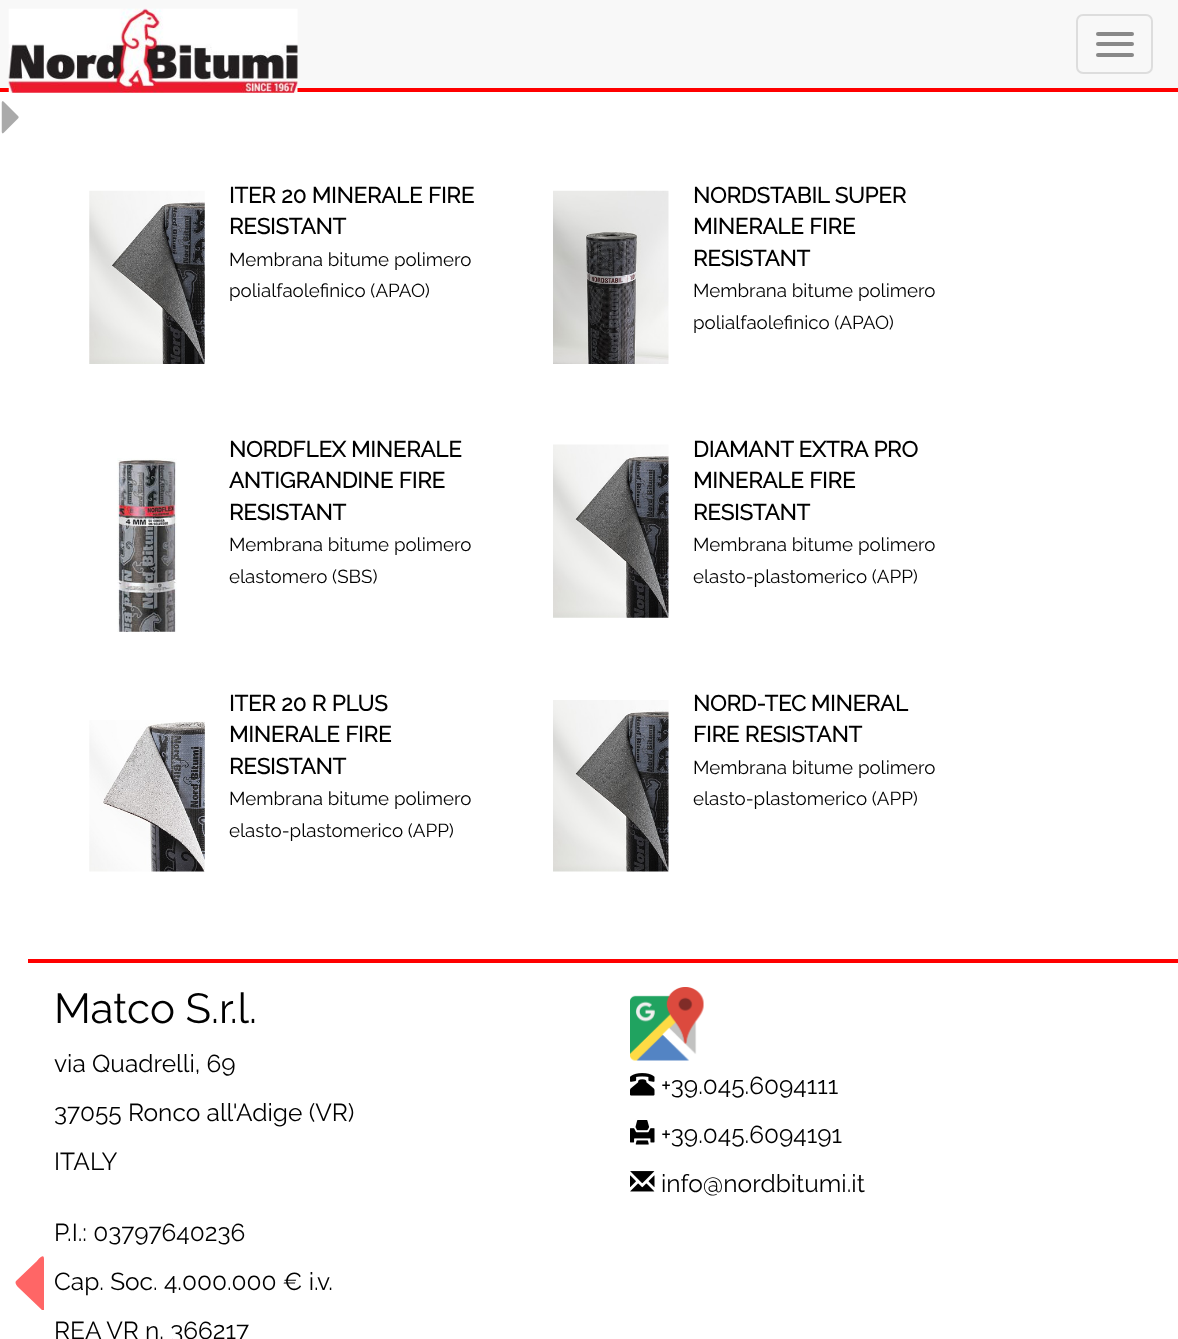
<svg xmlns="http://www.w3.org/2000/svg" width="1178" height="1339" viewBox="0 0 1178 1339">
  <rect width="100%" height="100%" fill="#ffffff"/>
  <rect x="0" y="0" width="1178" height="88" fill="#f8f8f8"/>
  <rect x="0" y="88" width="1178" height="4" fill="#ff0000"/>
  <image x="8" y="8" width="290" height="85" href="img1.png"/>
  <rect x="1077" y="15" width="75" height="58" rx="6" fill="none" stroke="#dddddd" stroke-width="2"/>
  <rect x="1096" y="32" width="38" height="4" rx="2" fill="#888888"/>
  <rect x="1096" y="42" width="38" height="4" rx="2" fill="#888888"/>
  <rect x="1096" y="53" width="38" height="4" rx="2" fill="#888888"/>
  <image x="1" y="101" width="18" height="33" href="img2.png"/>
  <image x="89" y="190" width="116" height="174" href="img3.png"/>
  <text x="229" y="203" font-family="Raleway" font-size="22" font-weight="bold" fill="#000000">ITER 20 MINERALE FIRE</text>
  <text x="229" y="234" font-family="Raleway" font-size="22" font-weight="bold" fill="#000000">RESISTANT</text>
  <text x="229" y="266" font-family="Raleway" font-size="18.75" font-weight="100" fill="#000000">Membrana bitume polimero</text>
  <text x="229" y="297" font-family="Raleway" font-size="18.75" font-weight="100" fill="#000000">polialfaolefinico (APAO)</text>
  <image x="553" y="190" width="116" height="174" href="img4.png"/>
  <text x="693" y="203" font-family="Raleway" font-size="22" font-weight="bold" fill="#000000">NORDSTABIL SUPER</text>
  <text x="693" y="234" font-family="Raleway" font-size="22" font-weight="bold" fill="#000000">MINERALE FIRE</text>
  <text x="693" y="266" font-family="Raleway" font-size="22" font-weight="bold" fill="#000000">RESISTANT</text>
  <text x="693" y="297" font-family="Raleway" font-size="18.75" font-weight="100" fill="#000000">Membrana bitume polimero</text>
  <text x="693" y="329" font-family="Raleway" font-size="18.75" font-weight="100" fill="#000000">polialfaolefinico (APAO)</text>
  <image x="117" y="458" width="60" height="174" href="img5.png"/>
  <text x="229" y="457" font-family="Raleway" font-size="22" font-weight="bold" fill="#000000">NORDFLEX MINERALE</text>
  <text x="229" y="488" font-family="Raleway" font-size="22" font-weight="bold" fill="#000000">ANTIGRANDINE FIRE</text>
  <text x="229" y="520" font-family="Raleway" font-size="22" font-weight="bold" fill="#000000">RESISTANT</text>
  <text x="229" y="551" font-family="Raleway" font-size="18.75" font-weight="100" fill="#000000">Membrana bitume polimero</text>
  <text x="229" y="583" font-family="Raleway" font-size="18.75" font-weight="100" fill="#000000">elastomero (SBS)</text>
  <image x="553" y="444" width="116" height="174" href="img6.png"/>
  <text x="693" y="457" font-family="Raleway" font-size="22" font-weight="bold" fill="#000000">DIAMANT EXTRA PRO</text>
  <text x="693" y="488" font-family="Raleway" font-size="22" font-weight="bold" fill="#000000">MINERALE FIRE</text>
  <text x="693" y="520" font-family="Raleway" font-size="22" font-weight="bold" fill="#000000">RESISTANT</text>
  <text x="693" y="551" font-family="Raleway" font-size="18.75" font-weight="100" fill="#000000">Membrana bitume polimero</text>
  <text x="693" y="583" font-family="Raleway" font-size="18.75" font-weight="100" fill="#000000">elasto-plastomerico (APP)</text>
  <image x="89" y="720" width="116" height="152" href="img7.png"/>
  <text x="229" y="711" font-family="Raleway" font-size="22" font-weight="bold" fill="#000000">ITER 20 R PLUS</text>
  <text x="229" y="742" font-family="Raleway" font-size="22" font-weight="bold" fill="#000000">MINERALE FIRE</text>
  <text x="229" y="774" font-family="Raleway" font-size="22" font-weight="bold" fill="#000000">RESISTANT</text>
  <text x="229" y="805" font-family="Raleway" font-size="18.75" font-weight="100" fill="#000000">Membrana bitume polimero</text>
  <text x="229" y="837" font-family="Raleway" font-size="18.75" font-weight="100" fill="#000000">elasto-plastomerico (APP)</text>
  <image x="553" y="700" width="116" height="172" href="img8.png"/>
  <text x="693" y="711" word-spacing="-1" font-family="Raleway" font-size="22" font-weight="bold" fill="#000000">NORD-TEC MINERAL</text>
  <text x="693" y="742" font-family="Raleway" font-size="22" font-weight="bold" fill="#000000">FIRE RESISTANT</text>
  <text x="693" y="774" font-family="Raleway" font-size="18.75" font-weight="100" fill="#000000">Membrana bitume polimero</text>
  <text x="693" y="805" font-family="Raleway" font-size="18.75" font-weight="100" fill="#000000">elasto-plastomerico (APP)</text>
  <path d="M16 1281L37 1261C37 1261 44 1252 44 1259V1308V1310H42L20 1289C19 1288 14 1284 16 1281Z" fill="#ff6666"/>
  <rect x="28" y="959" width="1150" height="4" fill="#ff0000"/>
  <text x="54" y="1023" font-family="Raleway" font-size="42" font-weight="100" fill="#000000">Matco S.r.l.</text>
  <text x="54" y="1072" font-family="Raleway" font-size="24.5" font-weight="100" fill="#000000">via Quadrelli, 69</text>
  <text x="54" y="1121" font-family="Raleway" font-size="24.5" font-weight="100" fill="#000000">37055 Ronco all'Adige (VR)</text>
  <text x="54" y="1170" font-family="Raleway" font-size="24.5" font-weight="100" fill="#000000">ITALY</text>
  <image x="630" y="987" width="74" height="74" href="img9.png"/>
  <image x="630" y="1073" width="25" height="23" href="img10.png"/>
  <text x="661" y="1094" font-family="Raleway" font-size="24.5" font-weight="100" fill="#000000">+39.045.6094111</text>
  <image x="630" y="1120" width="25" height="25" href="img11.png"/>
  <text x="661" y="1143" font-family="Raleway" font-size="24.5" font-weight="100" fill="#000000">+39.045.6094191</text>
  <image x="630" y="1171" width="25" height="21" href="img12.png"/>
  <text x="661" y="1192" font-family="Raleway" font-size="24.5" font-weight="100" fill="#000000">info@nordbitumi.it</text>
  <text x="54" y="1241" font-family="Raleway" font-size="24.5" font-weight="100" fill="#000000">P.I.: 03797640236</text>
  <text x="54" y="1290" font-family="Raleway" font-size="24.5" font-weight="100" fill="#000000">Cap. Soc. 4.000.000 € i.v.</text>
  <text x="54" y="1339" font-family="Raleway" font-size="24.5" font-weight="100" fill="#000000">REA VR n. 366217</text>
</svg>
